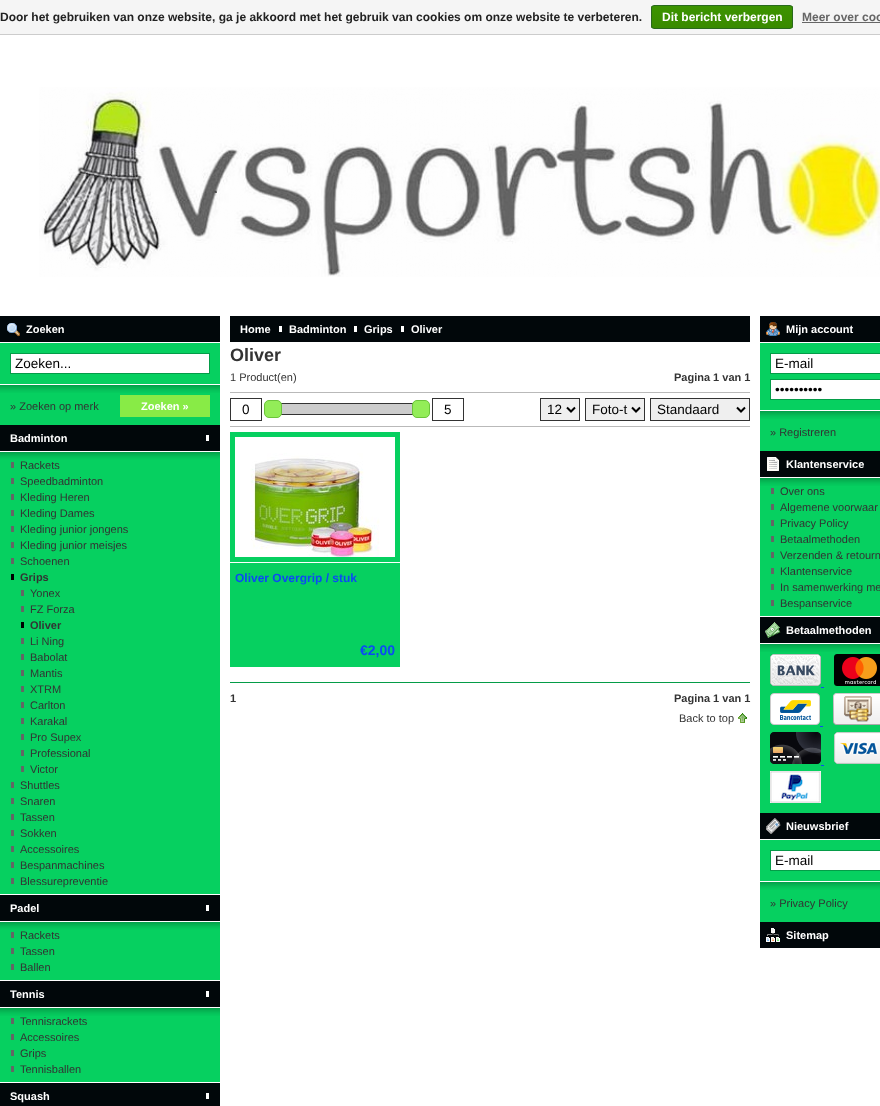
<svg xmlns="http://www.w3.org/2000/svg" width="880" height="1106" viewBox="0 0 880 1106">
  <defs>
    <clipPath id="clip1"><rect x="651" y="5" width="142" height="24" rx="3"/></clipPath>
    <linearGradient id="g1" gradientUnits="userSpaceOnUse" x1="722" y1="6" x2="722" y2="28"><stop offset="0" stop-color="#3c9300"/><stop offset="1" stop-color="#398a00"/></linearGradient>
  </defs>
  <rect width="100%" height="100%" fill="#ffffff"/>
  <rect x="0" y="0" width="880" height="34" fill="#f5f5f5"/>
  <rect x="0" y="34" width="880" height="1" fill="#cccccc"/>
  <text x="0" y="21" font-family="Liberation Sans" font-size="12" font-weight="bold" fill="#222222">Door het gebruiken van onze website, ga je akkoord met het gebruik van cookies om onze website te verbeteren.</text>
  <g clip-path="url(#clip1)">
    <rect x="651" y="6" width="142" height="22" fill="url(#g1)"/>
  </g>
  <rect x="651.5" y="5.5" width="141" height="23" rx="2.5" fill="none" stroke="#29691d"/>
  <text x="662" y="21" font-family="Liberation Sans" font-size="12" font-weight="bold" fill="#ffffff">Dit bericht verbergen</text>
  <text x="802" y="21" font-family="Liberation Sans" font-size="12" font-weight="bold" fill="#666666">Meer over coo</text>
  <rect x="802" y="22" width="78" height="1" fill="#666666"/>
  <image x="39" y="87" width="841" height="190" href="img1.png"/>
  <rect x="0" y="316" width="220" height="26" fill="#01070a"/>
  <image x="7" y="323" width="13" height="14" href="img2.png"/>
  <text x="26" y="333" font-family="Liberation Sans" font-size="11" font-weight="bold" fill="#ffffff">Zoeken</text>
  <rect x="0" y="343" width="220" height="82" fill="#06d060"/>
  <rect x="0" y="384" width="220" height="1" fill="#ffffff"/>
  <rect x="10.5" y="353.5" width="199" height="20" fill="#ffffff" stroke="#049c48"/>
  <text x="15" y="368" font-family="Liberation Sans" font-size="13.5" fill="#000000">Zoeken...</text>
  <image x="0" y="385" width="220" height="8" href="img3.png"/>
  <text x="10" y="410" font-family="Liberation Sans" font-size="11" fill="#333333">» Zoeken op merk</text>
  <rect x="120" y="395" width="90" height="22" fill="#88eb46"/>
  <text x="141" y="410" font-family="Liberation Sans" font-size="11" font-weight="bold" fill="#ffffff">Zoeken »</text>
  <rect x="0" y="425" width="220" height="26" fill="#01070a"/>
  <rect x="206" y="435" width="3" height="6" fill="#ffffff"/>
  <text x="10" y="442" font-family="Liberation Sans" font-size="11" font-weight="bold" fill="#ffffff">Badminton</text>
  <rect x="0" y="452" width="220" height="442" fill="#06d060"/>
  <image x="0" y="452" width="220" height="8" href="img3.png"/>
  <rect x="11" y="462" width="3" height="6" fill="#646664"/>
  <text x="20" y="469" font-family="Liberation Sans" font-size="11" fill="#333333">Rackets</text>
  <rect x="11" y="478" width="3" height="6" fill="#646664"/>
  <text x="20" y="485" font-family="Liberation Sans" font-size="11" fill="#333333">Speedbadminton</text>
  <rect x="11" y="494" width="3" height="6" fill="#646664"/>
  <text x="20" y="501" font-family="Liberation Sans" font-size="11" fill="#333333">Kleding Heren</text>
  <rect x="11" y="510" width="3" height="6" fill="#646664"/>
  <text x="20" y="517" font-family="Liberation Sans" font-size="11" fill="#333333">Kleding Dames</text>
  <rect x="11" y="526" width="3" height="6" fill="#646664"/>
  <text x="20" y="533" font-family="Liberation Sans" font-size="11" fill="#333333">Kleding junior jongens</text>
  <rect x="11" y="542" width="3" height="6" fill="#646664"/>
  <text x="20" y="549" font-family="Liberation Sans" font-size="11" fill="#333333">Kleding junior meisjes</text>
  <rect x="11" y="558" width="3" height="6" fill="#646664"/>
  <text x="20" y="565" font-family="Liberation Sans" font-size="11" fill="#333333">Schoenen</text>
  <rect x="11" y="574" width="3" height="6" fill="#000000"/>
  <text x="20" y="581" font-family="Liberation Sans" font-size="11" font-weight="bold" fill="#333333">Grips</text>
  <rect x="21" y="590" width="3" height="6" fill="#646664"/>
  <text x="30" y="597" font-family="Liberation Sans" font-size="11" fill="#333333">Yonex</text>
  <rect x="21" y="606" width="3" height="6" fill="#646664"/>
  <text x="30" y="613" font-family="Liberation Sans" font-size="11" fill="#333333">FZ Forza</text>
  <rect x="21" y="622" width="3" height="6" fill="#000000"/>
  <text x="30" y="629" font-family="Liberation Sans" font-size="11" font-weight="bold" fill="#333333">Oliver</text>
  <rect x="21" y="638" width="3" height="6" fill="#646664"/>
  <text x="30" y="645" font-family="Liberation Sans" font-size="11" fill="#333333">Li Ning</text>
  <rect x="21" y="654" width="3" height="6" fill="#646664"/>
  <text x="30" y="661" font-family="Liberation Sans" font-size="11" fill="#333333">Babolat</text>
  <rect x="21" y="670" width="3" height="6" fill="#646664"/>
  <text x="30" y="677" font-family="Liberation Sans" font-size="11" fill="#333333">Mantis</text>
  <rect x="21" y="686" width="3" height="6" fill="#646664"/>
  <text x="30" y="693" font-family="Liberation Sans" font-size="11" fill="#333333">XTRM</text>
  <rect x="21" y="702" width="3" height="6" fill="#646664"/>
  <text x="30" y="709" font-family="Liberation Sans" font-size="11" fill="#333333">Carlton</text>
  <rect x="21" y="718" width="3" height="6" fill="#646664"/>
  <text x="30" y="725" font-family="Liberation Sans" font-size="11" fill="#333333">Karakal</text>
  <rect x="21" y="734" width="3" height="6" fill="#646664"/>
  <text x="30" y="741" font-family="Liberation Sans" font-size="11" fill="#333333">Pro Supex</text>
  <rect x="21" y="750" width="3" height="6" fill="#646664"/>
  <text x="30" y="757" font-family="Liberation Sans" font-size="11" fill="#333333">Professional</text>
  <rect x="21" y="766" width="3" height="6" fill="#646664"/>
  <text x="30" y="773" font-family="Liberation Sans" font-size="11" fill="#333333">Victor</text>
  <rect x="11" y="782" width="3" height="6" fill="#646664"/>
  <text x="20" y="789" font-family="Liberation Sans" font-size="11" fill="#333333">Shuttles</text>
  <rect x="11" y="798" width="3" height="6" fill="#646664"/>
  <text x="20" y="805" font-family="Liberation Sans" font-size="11" fill="#333333">Snaren</text>
  <rect x="11" y="814" width="3" height="6" fill="#646664"/>
  <text x="20" y="821" font-family="Liberation Sans" font-size="11" fill="#333333">Tassen</text>
  <rect x="11" y="830" width="3" height="6" fill="#646664"/>
  <text x="20" y="837" font-family="Liberation Sans" font-size="11" fill="#333333">Sokken</text>
  <rect x="11" y="846" width="3" height="6" fill="#646664"/>
  <text x="20" y="853" font-family="Liberation Sans" font-size="11" fill="#333333">Accessoires</text>
  <rect x="11" y="862" width="3" height="6" fill="#646664"/>
  <text x="20" y="869" font-family="Liberation Sans" font-size="11" fill="#333333">Bespanmachines</text>
  <rect x="11" y="878" width="3" height="6" fill="#646664"/>
  <text x="20" y="885" font-family="Liberation Sans" font-size="11" fill="#333333">Blessurepreventie</text>
  <rect x="0" y="895" width="220" height="26" fill="#01070a"/>
  <rect x="206" y="905" width="3" height="6" fill="#ffffff"/>
  <text x="10" y="912" font-family="Liberation Sans" font-size="11" font-weight="bold" fill="#ffffff">Padel</text>
  <rect x="0" y="922" width="220" height="58" fill="#06d060"/>
  <image x="0" y="922" width="220" height="8" href="img3.png"/>
  <rect x="11" y="932" width="3" height="6" fill="#646664"/>
  <text x="20" y="939" font-family="Liberation Sans" font-size="11" fill="#333333">Rackets</text>
  <rect x="11" y="948" width="3" height="6" fill="#646664"/>
  <text x="20" y="955" font-family="Liberation Sans" font-size="11" fill="#333333">Tassen</text>
  <rect x="11" y="964" width="3" height="6" fill="#646664"/>
  <text x="20" y="971" font-family="Liberation Sans" font-size="11" fill="#333333">Ballen</text>
  <rect x="0" y="981" width="220" height="26" fill="#01070a"/>
  <rect x="206" y="991" width="3" height="6" fill="#ffffff"/>
  <text x="10" y="998" font-family="Liberation Sans" font-size="11" font-weight="bold" fill="#ffffff">Tennis</text>
  <rect x="0" y="1008" width="220" height="74" fill="#06d060"/>
  <image x="0" y="1008" width="220" height="8" href="img3.png"/>
  <rect x="11" y="1018" width="3" height="6" fill="#646664"/>
  <text x="20" y="1025" font-family="Liberation Sans" font-size="11" fill="#333333">Tennisrackets</text>
  <rect x="11" y="1034" width="3" height="6" fill="#646664"/>
  <text x="20" y="1041" font-family="Liberation Sans" font-size="11" fill="#333333">Accessoires</text>
  <rect x="11" y="1050" width="3" height="6" fill="#646664"/>
  <text x="20" y="1057" font-family="Liberation Sans" font-size="11" fill="#333333">Grips</text>
  <rect x="11" y="1066" width="3" height="6" fill="#646664"/>
  <text x="20" y="1073" font-family="Liberation Sans" font-size="11" fill="#333333">Tennisballen</text>
  <rect x="0" y="1083" width="220" height="23" fill="#01070a"/>
  <rect x="206" y="1093" width="3" height="6" fill="#ffffff"/>
  <text x="10" y="1100" font-family="Liberation Sans" font-size="11" font-weight="bold" fill="#ffffff">Squash</text>
  <rect x="230" y="316" width="520" height="26" fill="#01070a"/>
  <text x="240" y="333" font-family="Liberation Sans" font-size="11" font-weight="bold" fill="#ffffff">Home</text>
  <rect x="279" y="326" width="3" height="6" fill="#ffffff"/>
  <text x="289" y="333" font-family="Liberation Sans" font-size="11" font-weight="bold" fill="#ffffff">Badminton</text>
  <rect x="354" y="326" width="3" height="6" fill="#ffffff"/>
  <text x="364" y="333" font-family="Liberation Sans" font-size="11" font-weight="bold" fill="#ffffff">Grips</text>
  <rect x="401" y="326" width="3" height="6" fill="#ffffff"/>
  <text x="411" y="333" font-family="Liberation Sans" font-size="11" font-weight="bold" fill="#ffffff">Oliver</text>
  <text x="230" y="361" font-family="Liberation Sans" font-size="18" font-weight="bold" fill="#333333">Oliver</text>
  <text x="230" y="381" font-family="Liberation Sans" font-size="11" fill="#333333">1 Product(en)</text>
  <text x="674" y="381" font-family="Liberation Sans" font-size="11" font-weight="bold" fill="#333333">Pagina 1 van 1</text>
  <rect x="230" y="392" width="520" height="1" fill="#b9b9b9"/>
  <rect x="230" y="426" width="520" height="1" fill="#b9b9b9"/>
  <rect x="230.5" y="398.5" width="31" height="22" fill="none" stroke="#333333"/>
  <text x="242" y="414" font-family="Liberation Sans" font-size="13.5" fill="#000000">0</text>
  <rect x="272.5" y="403.5" width="149" height="11" fill="none" stroke="#333333"/>
  <rect x="281" y="404" width="132" height="10" fill="#cccccc"/>
  <rect x="264.5" y="400.5" width="17" height="17" rx="4.5" fill="#93ed58" stroke="#6bc43b"/>
  <rect x="412.5" y="400.5" width="17" height="17" rx="4.5" fill="#93ed58" stroke="#6bc43b"/>
  <rect x="432.5" y="398.5" width="31" height="22" fill="none" stroke="#333333"/>
  <text x="444" y="414" font-family="Liberation Sans" font-size="13.5" fill="#000000">5</text>
  <rect x="540.5" y="398.5" width="39" height="22" fill="#efefef" stroke="#333333"/>
  <path d="M567 407.5L571 411.5L575 407.5" fill="none" stroke="#000000" stroke-width="2"/>
  <text x="547" y="414" font-family="Liberation Sans" font-size="13.5" fill="#000000">12</text>
  <rect x="585.5" y="398.5" width="59" height="22" fill="#efefef" stroke="#333333"/>
  <path d="M632 407.5L636 411.5L640 407.5" fill="none" stroke="#000000" stroke-width="2"/>
  <text x="592" y="414" font-family="Liberation Sans" font-size="13.5" fill="#000000">Foto-t</text>
  <rect x="650.5" y="398.5" width="99" height="22" fill="#efefef" stroke="#333333"/>
  <path d="M737 407.5L741 411.5L745 407.5" fill="none" stroke="#000000" stroke-width="2"/>
  <text x="657" y="414" font-family="Liberation Sans" font-size="13.5" fill="#000000">Standaard</text>
  <rect x="230" y="432" width="170" height="235" fill="#06d060"/>
  <image x="235" y="437" width="160" height="120" href="img4.png"/>
  <rect x="230" y="562" width="170" height="1" fill="#ffffff"/>
  <text x="235" y="582" font-family="Liberation Sans" font-size="12" font-weight="bold" fill="#0c4af5">Oliver Overgrip / stuk</text>
  <text x="360" y="655" font-family="Liberation Sans" font-size="14" font-weight="bold" fill="#0c4af5">€2,00</text>
  <rect x="230" y="682" width="520" height="1" fill="#049c48"/>
  <text x="230" y="702" font-family="Liberation Sans" font-size="11" font-weight="bold" fill="#333333">1</text>
  <text x="674" y="702" font-family="Liberation Sans" font-size="11" font-weight="bold" fill="#333333">Pagina 1 van 1</text>
  <image x="738" y="713" width="9" height="10" href="img5.png"/>
  <text x="679" y="722" font-family="Liberation Sans" font-size="11" fill="#333333">Back to top</text>
  <rect x="760" y="316" width="120" height="26" fill="#01070a"/>
  <image x="766" y="322" width="14" height="14" href="img6.png"/>
  <text x="786" y="333" font-family="Liberation Sans" font-size="11" font-weight="bold" fill="#ffffff">Mijn account</text>
  <rect x="760" y="343" width="120" height="108" fill="#06d060"/>
  <rect x="760" y="410" width="120" height="1" fill="#ffffff"/>
  <rect x="770.5" y="353.5" width="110" height="20" fill="#ffffff" stroke="#049c48"/>
  <text x="775" y="368" font-family="Liberation Sans" font-size="13.5" fill="#000000">E-mail</text>
  <rect x="770.5" y="379.5" width="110" height="20" fill="#ffffff" stroke="#049c48"/>
  <text x="775" y="394" font-family="Liberation Sans" font-size="13.5" fill="#000000">••••••••••</text>
  <image x="760" y="411" width="120" height="8" href="img7.png"/>
  <text x="770" y="436" font-family="Liberation Sans" font-size="11" fill="#333333">» Registreren</text>
  <rect x="760" y="451" width="120" height="26" fill="#01070a"/>
  <image x="767" y="457" width="12" height="14" href="img8.png"/>
  <text x="786" y="468" font-family="Liberation Sans" font-size="11" font-weight="bold" fill="#ffffff">Klantenservice</text>
  <rect x="760" y="478" width="120" height="138" fill="#06d060"/>
  <image x="760" y="478" width="120" height="8" href="img7.png"/>
  <rect x="771" y="488" width="3" height="6" fill="#646664"/>
  <text x="780" y="495" font-family="Liberation Sans" font-size="11" fill="#333333">Over ons</text>
  <rect x="771" y="504" width="3" height="6" fill="#646664"/>
  <text x="780" y="511" font-family="Liberation Sans" font-size="11" fill="#333333">Algemene voorwaar</text>
  <rect x="771" y="520" width="3" height="6" fill="#646664"/>
  <text x="780" y="527" font-family="Liberation Sans" font-size="11" fill="#333333">Privacy Policy</text>
  <rect x="771" y="536" width="3" height="6" fill="#646664"/>
  <text x="780" y="543" font-family="Liberation Sans" font-size="11" fill="#333333">Betaalmethoden</text>
  <rect x="771" y="552" width="3" height="6" fill="#646664"/>
  <text x="780" y="559" font-family="Liberation Sans" font-size="11" fill="#333333">Verzenden &amp; retourn</text>
  <rect x="771" y="568" width="3" height="6" fill="#646664"/>
  <text x="780" y="575" font-family="Liberation Sans" font-size="11" fill="#333333">Klantenservice</text>
  <rect x="771" y="584" width="3" height="6" fill="#646664"/>
  <text x="780" y="591" font-family="Liberation Sans" font-size="11" fill="#333333">In samenwerking me</text>
  <rect x="771" y="600" width="3" height="6" fill="#646664"/>
  <text x="780" y="607" font-family="Liberation Sans" font-size="11" fill="#333333">Bespanservice</text>
  <rect x="760" y="617" width="120" height="26" fill="#01070a"/>
  <image x="765" y="622" width="16" height="16" href="img9.png"/>
  <text x="786" y="634" font-family="Liberation Sans" font-size="11" font-weight="bold" fill="#ffffff">Betaalmethoden</text>
  <rect x="760" y="644" width="120" height="169" fill="#06d060"/>
  <image x="760" y="644" width="120" height="8" href="img7.png"/>
  <image x="770" y="654" width="51" height="32" href="img10.png"/>
  <image x="834" y="654" width="46" height="32" href="img11.png"/>
  <rect x="821" y="687" width="3" height="1" fill="#0c4af5"/>
  <image x="770" y="693" width="50" height="32" href="img12.png"/>
  <image x="833" y="693" width="47" height="32" href="img13.png"/>
  <rect x="820" y="726" width="3" height="1" fill="#0c4af5"/>
  <image x="770" y="732" width="51" height="32" href="img14.png"/>
  <image x="834" y="732" width="46" height="32" href="img15.png"/>
  <rect x="821" y="765" width="3" height="1" fill="#0c4af5"/>
  <image x="770" y="771" width="51" height="32" href="img16.png"/>
  <rect x="760" y="813" width="120" height="26" fill="#01070a"/>
  <image x="766" y="818" width="15" height="16" href="img17.png"/>
  <text x="786" y="830" font-family="Liberation Sans" font-size="11" font-weight="bold" fill="#ffffff">Nieuwsbrief</text>
  <rect x="760" y="840" width="120" height="82" fill="#06d060"/>
  <rect x="760" y="881" width="120" height="1" fill="#ffffff"/>
  <rect x="770.5" y="850.5" width="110" height="20" fill="#ffffff" stroke="#049c48"/>
  <text x="775" y="865" font-family="Liberation Sans" font-size="13.5" fill="#000000">E-mail</text>
  <image x="760" y="882" width="120" height="8" href="img7.png"/>
  <text x="770" y="907" font-family="Liberation Sans" font-size="11" fill="#333333">» Privacy Policy</text>
  <rect x="760" y="922" width="120" height="26" fill="#01070a"/>
  <image x="765" y="928" width="15" height="15" href="img18.png"/>
  <text x="786" y="939" font-family="Liberation Sans" font-size="11" font-weight="bold" fill="#ffffff">Sitemap</text>
</svg>
